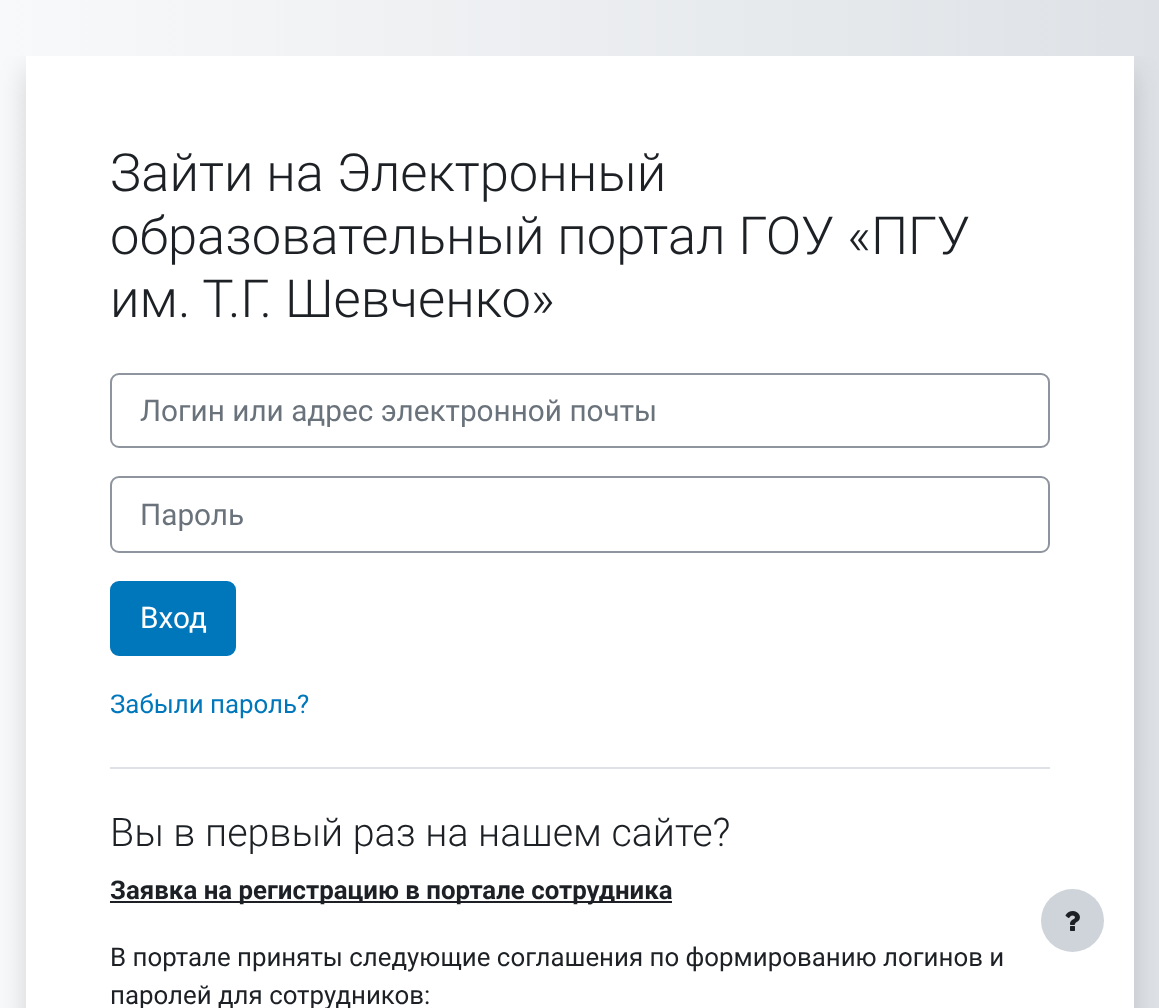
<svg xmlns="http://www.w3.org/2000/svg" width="1159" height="1008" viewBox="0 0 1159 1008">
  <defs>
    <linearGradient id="g1" gradientUnits="userSpaceOnUse" x1="0" y1="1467" x2="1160" y2="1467"><stop offset="0" stop-color="#f8f9fa"/><stop offset="1" stop-color="#dee2e6"/></linearGradient>
    <clipPath id="clip1"><rect x="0" y="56" width="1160" height="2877"/></clipPath>
    <filter id="blur1" x="-50%" y="-200%" width="200%" height="500%"><feGaussianBlur stdDeviation="14"/></filter>
  </defs>
  <rect width="100%" height="100%" fill="#ffffff"/>
  <rect x="0" y="0" width="1159" height="1008" fill="url(#g1)"/>
  <g clip-path="url(#clip1)">
    <rect x="26" y="70" width="1108" height="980" fill="#000000" fill-opacity="0.15" filter="url(#blur1)"/>
  </g>
  <rect x="26" y="56" width="1108" height="952" fill="#ffffff"/>
  <text x="110" y="191" font-family="Roboto" font-size="52.5" font-weight="300" fill="#1d2125">Зайти на Электронный</text>
  <text x="110" y="254" font-family="Roboto" font-size="52.5" font-weight="300" fill="#1d2125">образовательный портал ГОУ «ПГУ</text>
  <text x="110" y="317" font-family="Roboto" font-size="52.5" font-weight="300" fill="#1d2125">им. Т.Г. Шевченко»</text>
  <rect x="111" y="374" width="938" height="73" rx="8" fill="none" stroke="#8f959e" stroke-width="2"/>
  <text x="140" y="421" font-family="Roboto" font-size="29.75" fill="#6a737b">Логин или адрес электронной почты</text>
  <rect x="111" y="477" width="938" height="75" rx="8" fill="none" stroke="#8f959e" stroke-width="2"/>
  <text x="140" y="525" font-family="Roboto" font-size="29.75" fill="#6a737b">Пароль</text>
  <rect x="111" y="582" width="124" height="73" rx="8" fill="#0077bb" stroke="#0077bb" stroke-width="2"/>
  <text x="140" y="628" font-family="Roboto" font-size="29.75" fill="#ffffff">Вход</text>
  <text x="110" y="713" font-family="Roboto" font-size="25.85" fill="#0077bb">Забыли пароль?</text>
  <rect x="110" y="767" width="940" height="2" fill="#dee2e6"/>
  <text x="110" y="846" font-family="Roboto" font-size="39.4" font-weight="300" fill="#1d2125">Вы в первый раз на нашем сайте?</text>
  <rect x="110" y="901" width="562" height="2" fill="#1d2125"/>
  <text x="110" y="899" font-family="Roboto" font-size="25.85" font-weight="bold" fill="#1d2125">Заявка на регистрацию в портале сотрудника</text>
  <text x="110" y="966" font-family="Roboto" font-size="25.85" fill="#1d2125">В портале приняты следующие соглашения по формированию логинов и</text>
  <text x="110" y="1004" font-family="Roboto" font-size="25.85" fill="#1d2125">паролей для сотрудников:</text>
  <circle cx="1072.5" cy="920.5" r="31.5" fill="#ced4da"/>
  <image x="1065" y="911" width="15" height="20" href="img1.png"/>
</svg>
